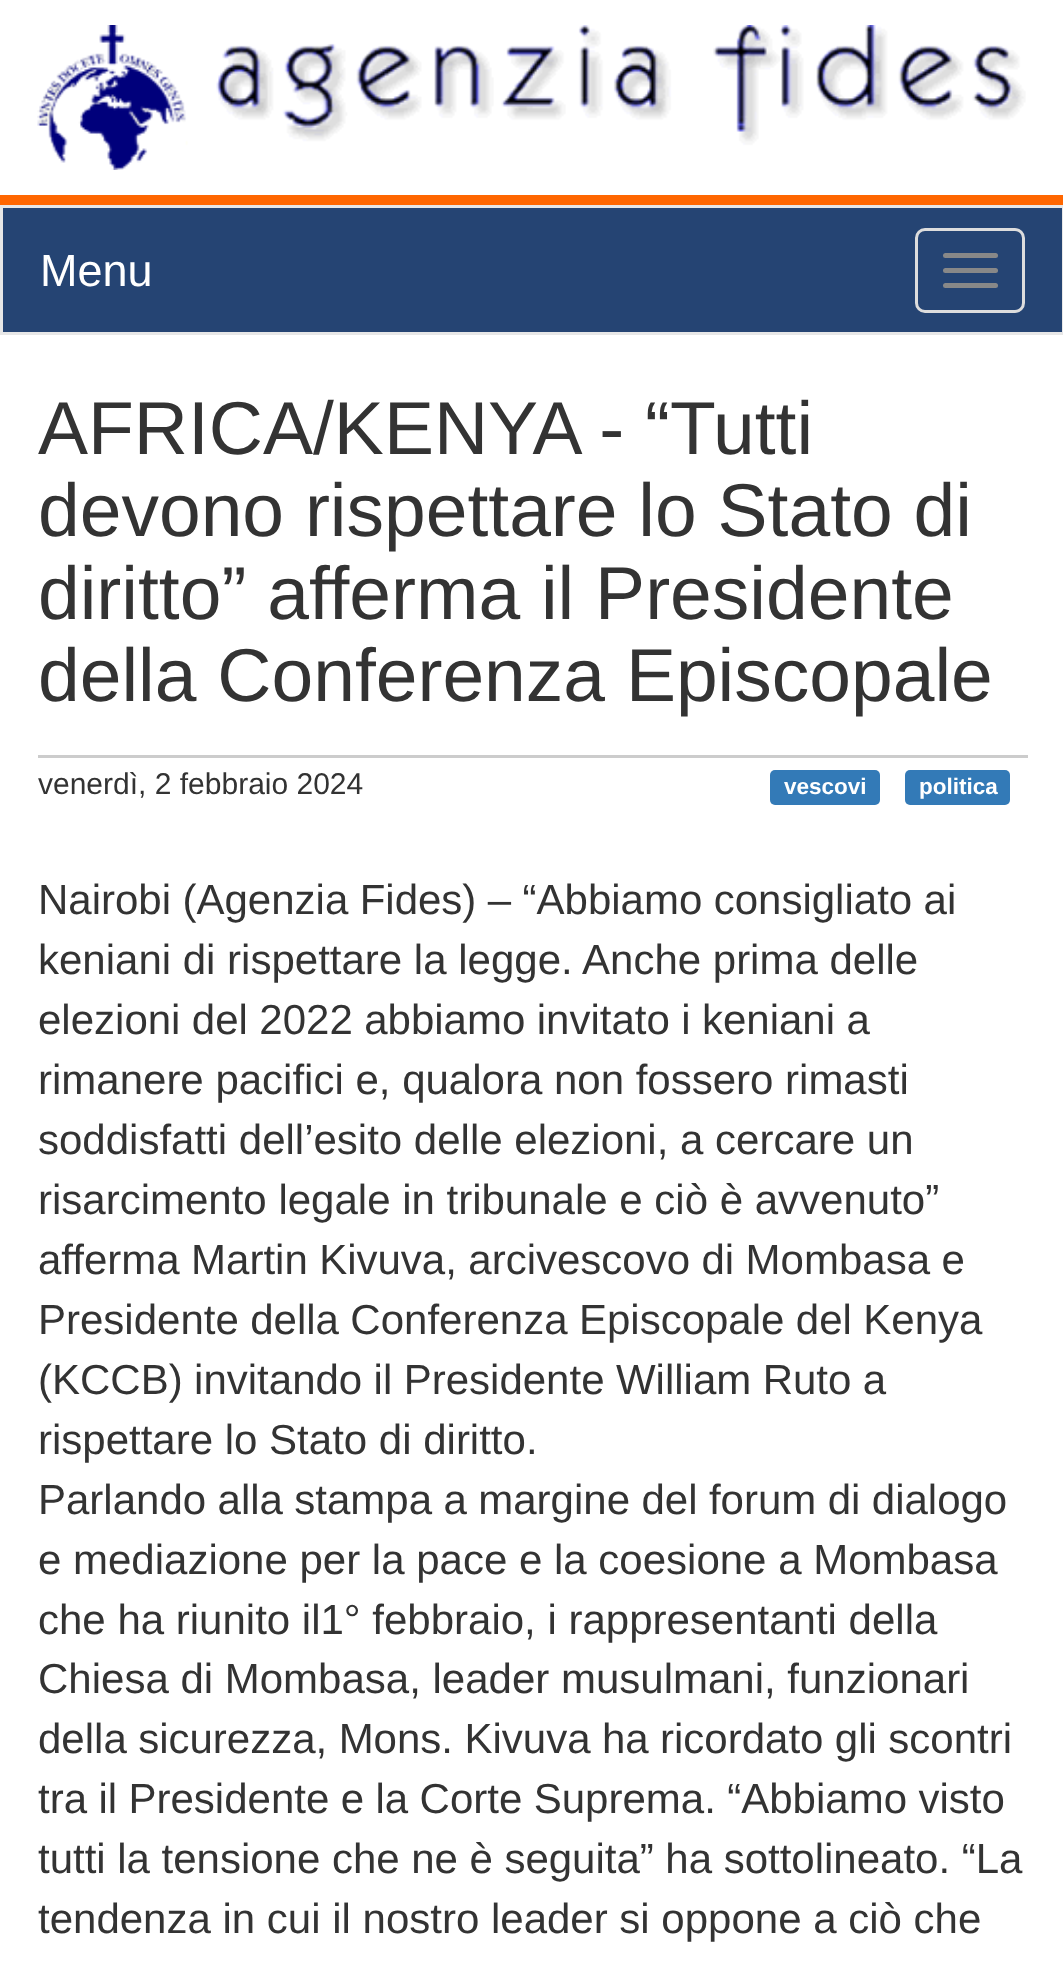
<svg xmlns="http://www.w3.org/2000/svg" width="1063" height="1985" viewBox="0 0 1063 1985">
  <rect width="100%" height="100%" fill="#ffffff"/>
  <rect x="0" y="195" width="1063" height="10" fill="#ff6600"/>
  <image x="37" y="25" width="989" height="145" href="img1.png"/>
  <rect x="1.5" y="206.5" width="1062" height="127" fill="#254473" stroke="#e7e7e7" stroke-width="3"/>
  <text x="40" y="286" font-family="Liberation Sans" font-size="45" fill="#ffffff">Menu</text>
  <rect x="916.5" y="229.5" width="107" height="82" rx="8.5" fill="none" stroke="#dddddd" stroke-width="3"/>
  <rect x="943" y="253" width="55" height="5" rx="2.5" fill="#888888"/>
  <rect x="943" y="268" width="55" height="5" rx="2.5" fill="#888888"/>
  <rect x="943" y="283" width="55" height="5" rx="2.5" fill="#888888"/>
  <rect x="38" y="755" width="990" height="3" fill="#cccccc"/>
  <text x="38" y="454" font-family="Liberation Sans" font-size="75" fill="#333333">AFRICA/KENYA - “Tutti</text>
  <text x="38" y="536" font-family="Liberation Sans" font-size="75" fill="#333333">devono rispettare lo Stato di</text>
  <text x="38" y="619" font-family="Liberation Sans" font-size="75" fill="#333333">diritto” afferma il Presidente</text>
  <text x="38" y="701" font-family="Liberation Sans" font-size="75" fill="#333333">della Conferenza Episcopale</text>
  <text x="38" y="794" font-family="Liberation Sans" font-size="30" fill="#333333">venerdì, 2 febbraio 2024</text>
  <rect x="770" y="770" width="110" height="35" rx="5" fill="#337ab7"/>
  <text x="784" y="794" font-family="Liberation Sans" font-size="22.5" font-weight="bold" fill="#ffffff">vescovi</text>
  <rect x="905" y="770" width="105" height="35" rx="5" fill="#337ab7"/>
  <text x="919" y="794" font-family="Liberation Sans" font-size="22.5" font-weight="bold" fill="#ffffff">politica</text>
  <text x="38" y="914" word-spacing="-0.25" font-family="Liberation Sans" font-size="42" fill="#333333">Nairobi (Agenzia Fides) – “Abbiamo consigliato ai</text>
  <text x="38" y="974" font-family="Liberation Sans" font-size="42" fill="#333333">keniani di rispettare la legge. Anche prima delle</text>
  <text x="38" y="1034" word-spacing="-0.25" font-family="Liberation Sans" font-size="42" fill="#333333">elezioni del 2022 abbiamo invitato i keniani a</text>
  <text x="38" y="1094" font-family="Liberation Sans" font-size="42" fill="#333333">rimanere pacifici e, qualora non fossero rimasti</text>
  <text x="38" y="1154" font-family="Liberation Sans" font-size="42" fill="#333333">soddisfatti dell’esito delle elezioni, a cercare un</text>
  <text x="38" y="1214" font-family="Liberation Sans" font-size="42" fill="#333333">risarcimento legale in tribunale e ciò è avvenuto”</text>
  <text x="38" y="1274" word-spacing="-0.25" font-family="Liberation Sans" font-size="42" fill="#333333">afferma Martin Kivuva, arcivescovo di Mombasa e</text>
  <text x="38" y="1334" word-spacing="-0.25" font-family="Liberation Sans" font-size="42" fill="#333333">Presidente della Conferenza Episcopale del Kenya</text>
  <text x="38" y="1394" word-spacing="-0.25" font-family="Liberation Sans" font-size="42" fill="#333333">(KCCB) invitando il Presidente William Ruto a</text>
  <text x="38" y="1454" font-family="Liberation Sans" font-size="42" fill="#333333">rispettare lo Stato di diritto.</text>
  <text x="38" y="1514" word-spacing="-0.25" font-family="Liberation Sans" font-size="42" fill="#333333">Parlando alla stampa a margine del forum di dialogo</text>
  <text x="38" y="1574" font-family="Liberation Sans" font-size="42" fill="#333333">e mediazione per la pace e la coesione a Mombasa</text>
  <text x="38" y="1634" font-family="Liberation Sans" font-size="42" fill="#333333">che ha riunito il1° febbraio, i rappresentanti della</text>
  <text x="38" y="1693" font-family="Liberation Sans" font-size="42" fill="#333333">Chiesa di Mombasa, leader musulmani, funzionari</text>
  <text x="38" y="1753" word-spacing="-0.25" font-family="Liberation Sans" font-size="42" fill="#333333">della sicurezza, Mons. Kivuva ha ricordato gli scontri</text>
  <text x="38" y="1813" word-spacing="-0.25" font-family="Liberation Sans" font-size="42" fill="#333333">tra il Presidente e la Corte Suprema. “Abbiamo visto</text>
  <text x="38" y="1873" word-spacing="-0.1" font-family="Liberation Sans" font-size="42" fill="#333333">tutti la tensione che ne è seguita” ha sottolineato. “La</text>
  <text x="38" y="1933" font-family="Liberation Sans" font-size="42" fill="#333333">tendenza in cui il nostro leader si oppone a ciò che</text>
</svg>
